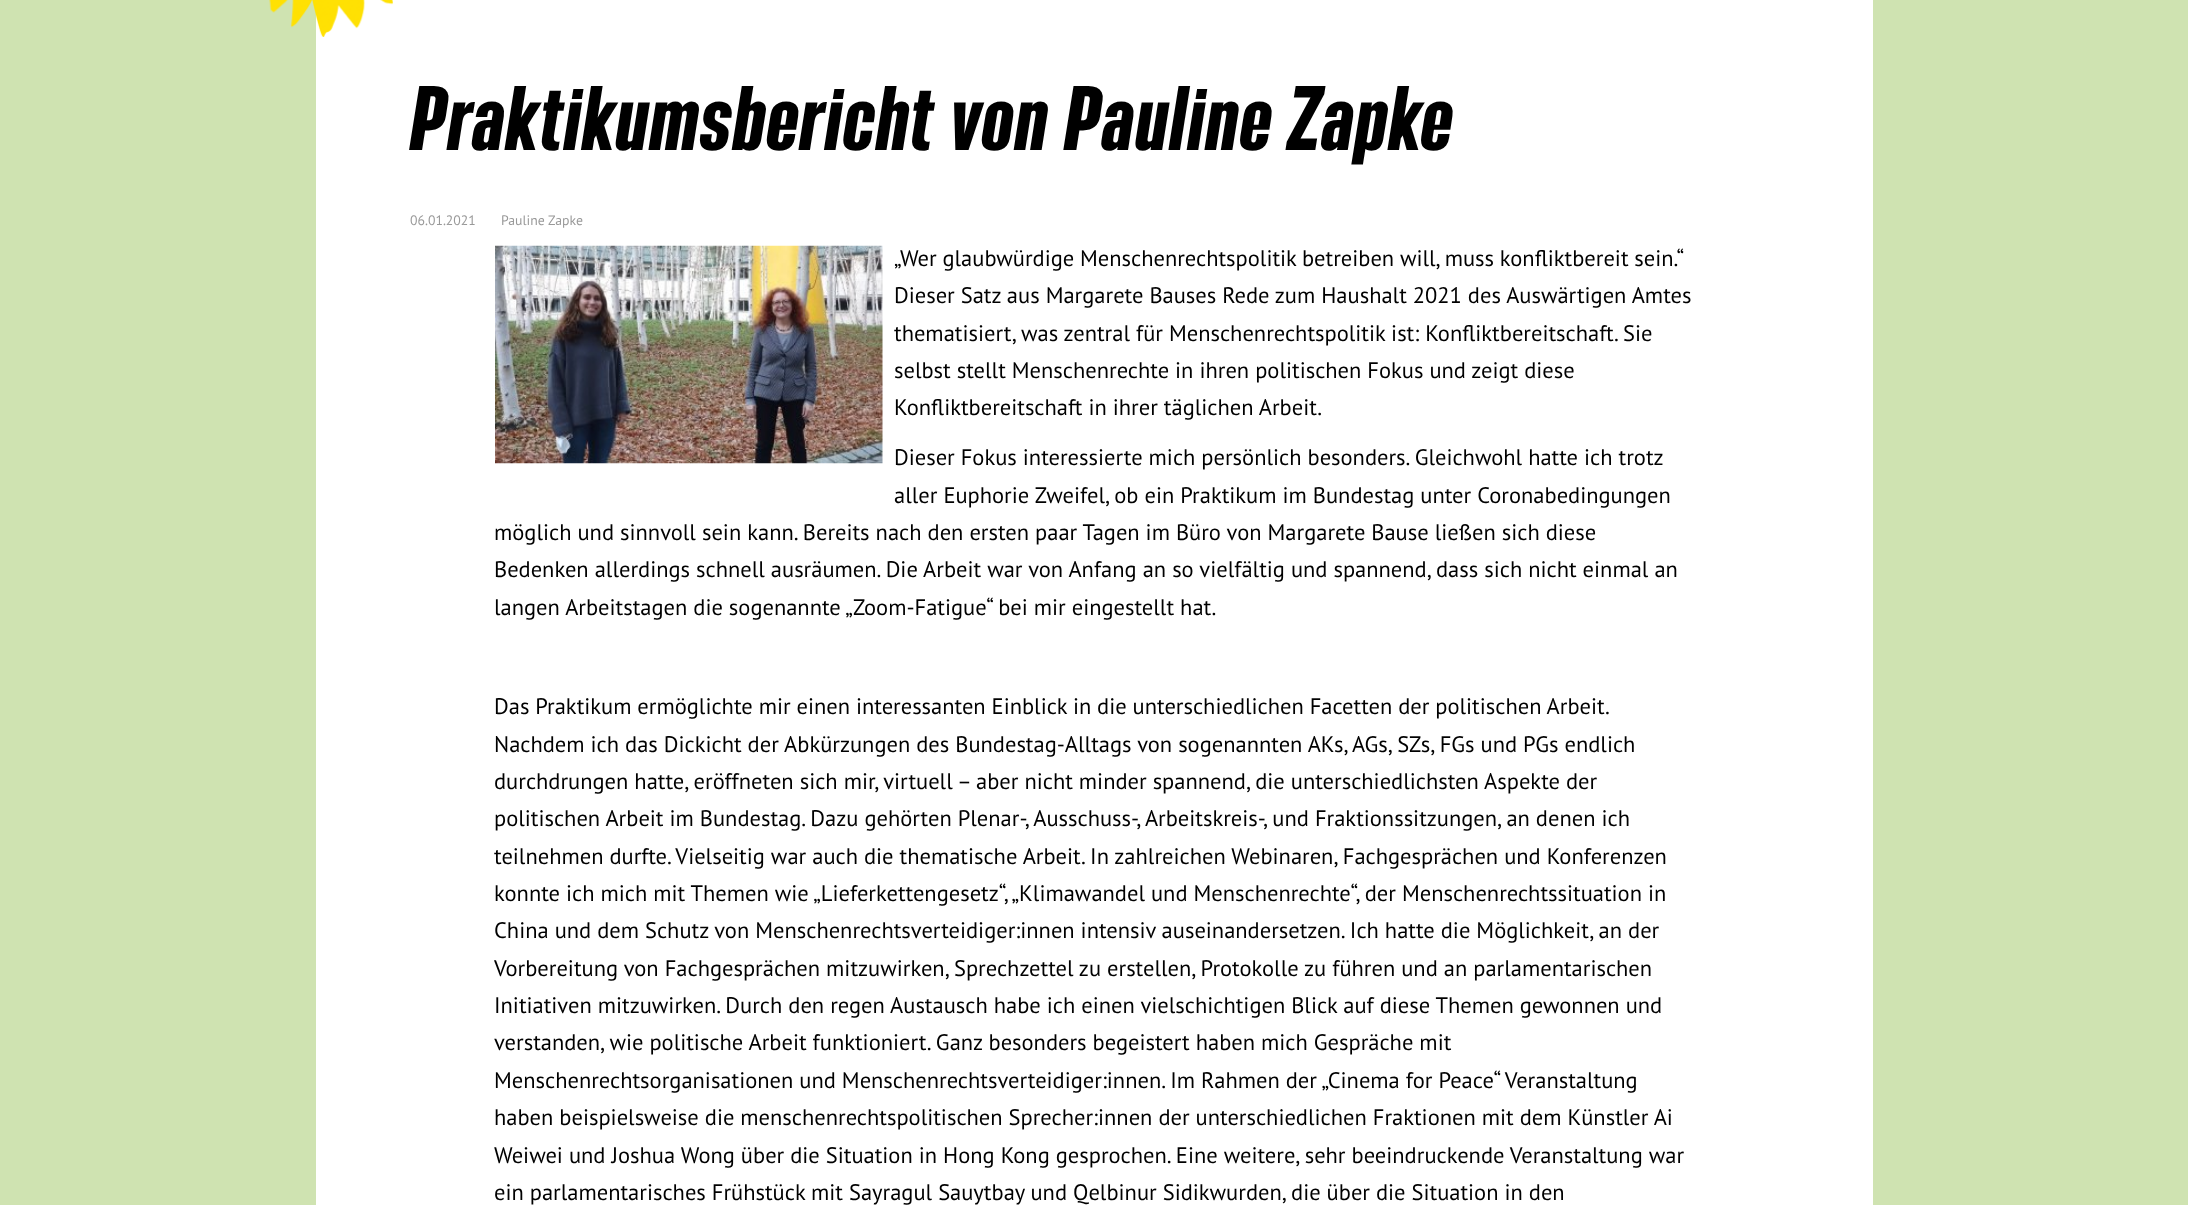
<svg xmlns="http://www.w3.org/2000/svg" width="2188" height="1205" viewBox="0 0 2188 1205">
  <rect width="100%" height="100%" fill="#cfe3b1"/>
  <rect x="316" y="0" width="1557" height="1205" fill="#ffffff"/>
  <image x="269" y="0" width="124" height="37" href="img1.png"/>
  <text x="410" y="150" font-family="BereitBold" font-size="80" font-weight="bold" letter-spacing="1.25" fill="#000000">Praktikumsbericht von Pauline Zapke</text>
  <text x="410" y="225" font-family="PT Sans" font-size="13.75" fill="#999999">06.01.2021</text>
  <text x="501" y="225" font-family="PT Sans" font-size="13.75" fill="#999999">Pauline Zapke</text>
  <image x="495" y="245" width="388" height="219" href="img2.png"/>
  <text x="894" y="266" word-spacing="-0.25" font-family="PT Sans" font-size="22.5" fill="#000000">„Wer glaubwürdige Menschenrechtspolitik betreiben will, muss konfliktbereit sein.“</text>
  <text x="894" y="303" font-family="PT Sans" font-size="22.5" fill="#000000">Dieser Satz aus Margarete Bauses Rede zum Haushalt 2021 des Auswärtigen Amtes</text>
  <text x="894" y="341" font-family="PT Sans" font-size="22.5" fill="#000000">thematisiert, was zentral für Menschenrechtspolitik ist: Konfliktbereitschaft. Sie</text>
  <text x="894" y="378" font-family="PT Sans" font-size="22.5" fill="#000000">selbst stellt Menschenrechte in ihren politischen Fokus und zeigt diese</text>
  <text x="894" y="415" font-family="PT Sans" font-size="22.5" fill="#000000">Konfliktbereitschaft in ihrer täglichen Arbeit.</text>
  <text x="894" y="465" font-family="PT Sans" font-size="22.5" fill="#000000">Dieser Fokus interessierte mich persönlich besonders. Gleichwohl hatte ich trotz</text>
  <text x="894" y="503" font-family="PT Sans" font-size="22.5" fill="#000000">aller Euphorie Zweifel, ob ein Praktikum im Bundestag unter Coronabedingungen</text>
  <text x="494" y="540" font-family="PT Sans" font-size="22.5" fill="#000000">möglich und sinnvoll sein kann. Bereits nach den ersten paar Tagen im Büro von Margarete Bause ließen sich diese</text>
  <text x="494" y="577" font-family="PT Sans" font-size="22.5" fill="#000000">Bedenken allerdings schnell ausräumen. Die Arbeit war von Anfang an so vielfältig und spannend, dass sich nicht einmal an</text>
  <text x="494" y="615" font-family="PT Sans" font-size="22.5" fill="#000000">langen Arbeitstagen die sogenannte „Zoom-Fatigue“ bei mir eingestellt hat.</text>
  <text x="494" y="714" word-spacing="-0.1" font-family="PT Sans" font-size="22.5" fill="#000000">Das Praktikum ermöglichte mir einen interessanten Einblick in die unterschiedlichen Facetten der politischen Arbeit.</text>
  <text x="494" y="752" font-family="PT Sans" font-size="22.5" fill="#000000">Nachdem ich das Dickicht der Abkürzungen des Bundestag-Alltags von sogenannten AKs, AGs, SZs, FGs und PGs endlich</text>
  <text x="494" y="789" font-family="PT Sans" font-size="22.5" fill="#000000">durchdrungen hatte, eröffneten sich mir, virtuell – aber nicht minder spannend, die unterschiedlichsten Aspekte der</text>
  <text x="494" y="826" font-family="PT Sans" font-size="22.5" fill="#000000">politischen Arbeit im Bundestag. Dazu gehörten Plenar-, Ausschuss-, Arbeitskreis-, und Fraktionssitzungen, an denen ich</text>
  <text x="494" y="864" font-family="PT Sans" font-size="22.5" fill="#000000">teilnehmen durfte. Vielseitig war auch die thematische Arbeit. In zahlreichen Webinaren, Fachgesprächen und Konferenzen</text>
  <text x="494" y="901" font-family="PT Sans" font-size="22.5" fill="#000000">konnte ich mich mit Themen wie „Lieferkettengesetz“, „Klimawandel und Menschenrechte“, der Menschenrechtssituation in</text>
  <text x="494" y="938" font-family="PT Sans" font-size="22.5" fill="#000000">China und dem Schutz von Menschenrechtsverteidiger:innen intensiv auseinandersetzen. Ich hatte die Möglichkeit, an der</text>
  <text x="494" y="976" font-family="PT Sans" font-size="22.5" fill="#000000">Vorbereitung von Fachgesprächen mitzuwirken, Sprechzettel zu erstellen, Protokolle zu führen und an parlamentarischen</text>
  <text x="494" y="1013" font-family="PT Sans" font-size="22.5" fill="#000000">Initiativen mitzuwirken. Durch den regen Austausch habe ich einen vielschichtigen Blick auf diese Themen gewonnen und</text>
  <text x="494" y="1050" font-family="PT Sans" font-size="22.5" fill="#000000">verstanden, wie politische Arbeit funktioniert. Ganz besonders begeistert haben mich Gespräche mit</text>
  <text x="494" y="1088" font-family="PT Sans" font-size="22.5" fill="#000000">Menschenrechtsorganisationen und Menschenrechtsverteidiger:innen. Im Rahmen der „Cinema for Peace“ Veranstaltung</text>
  <text x="494" y="1125" font-family="PT Sans" font-size="22.5" fill="#000000">haben beispielsweise die menschenrechtspolitischen Sprecher:innen der unterschiedlichen Fraktionen mit dem Künstler Ai</text>
  <text x="494" y="1163" font-family="PT Sans" font-size="22.5" fill="#000000">Weiwei und Joshua Wong über die Situation in Hong Kong gesprochen. Eine weitere, sehr beeindruckende Veranstaltung war</text>
  <text x="494" y="1200" font-family="PT Sans" font-size="22.5" fill="#000000">ein parlamentarisches Frühstück mit Sayragul Sauytbay und Qelbinur Sidikwurden, die über die Situation in den</text>
</svg>
